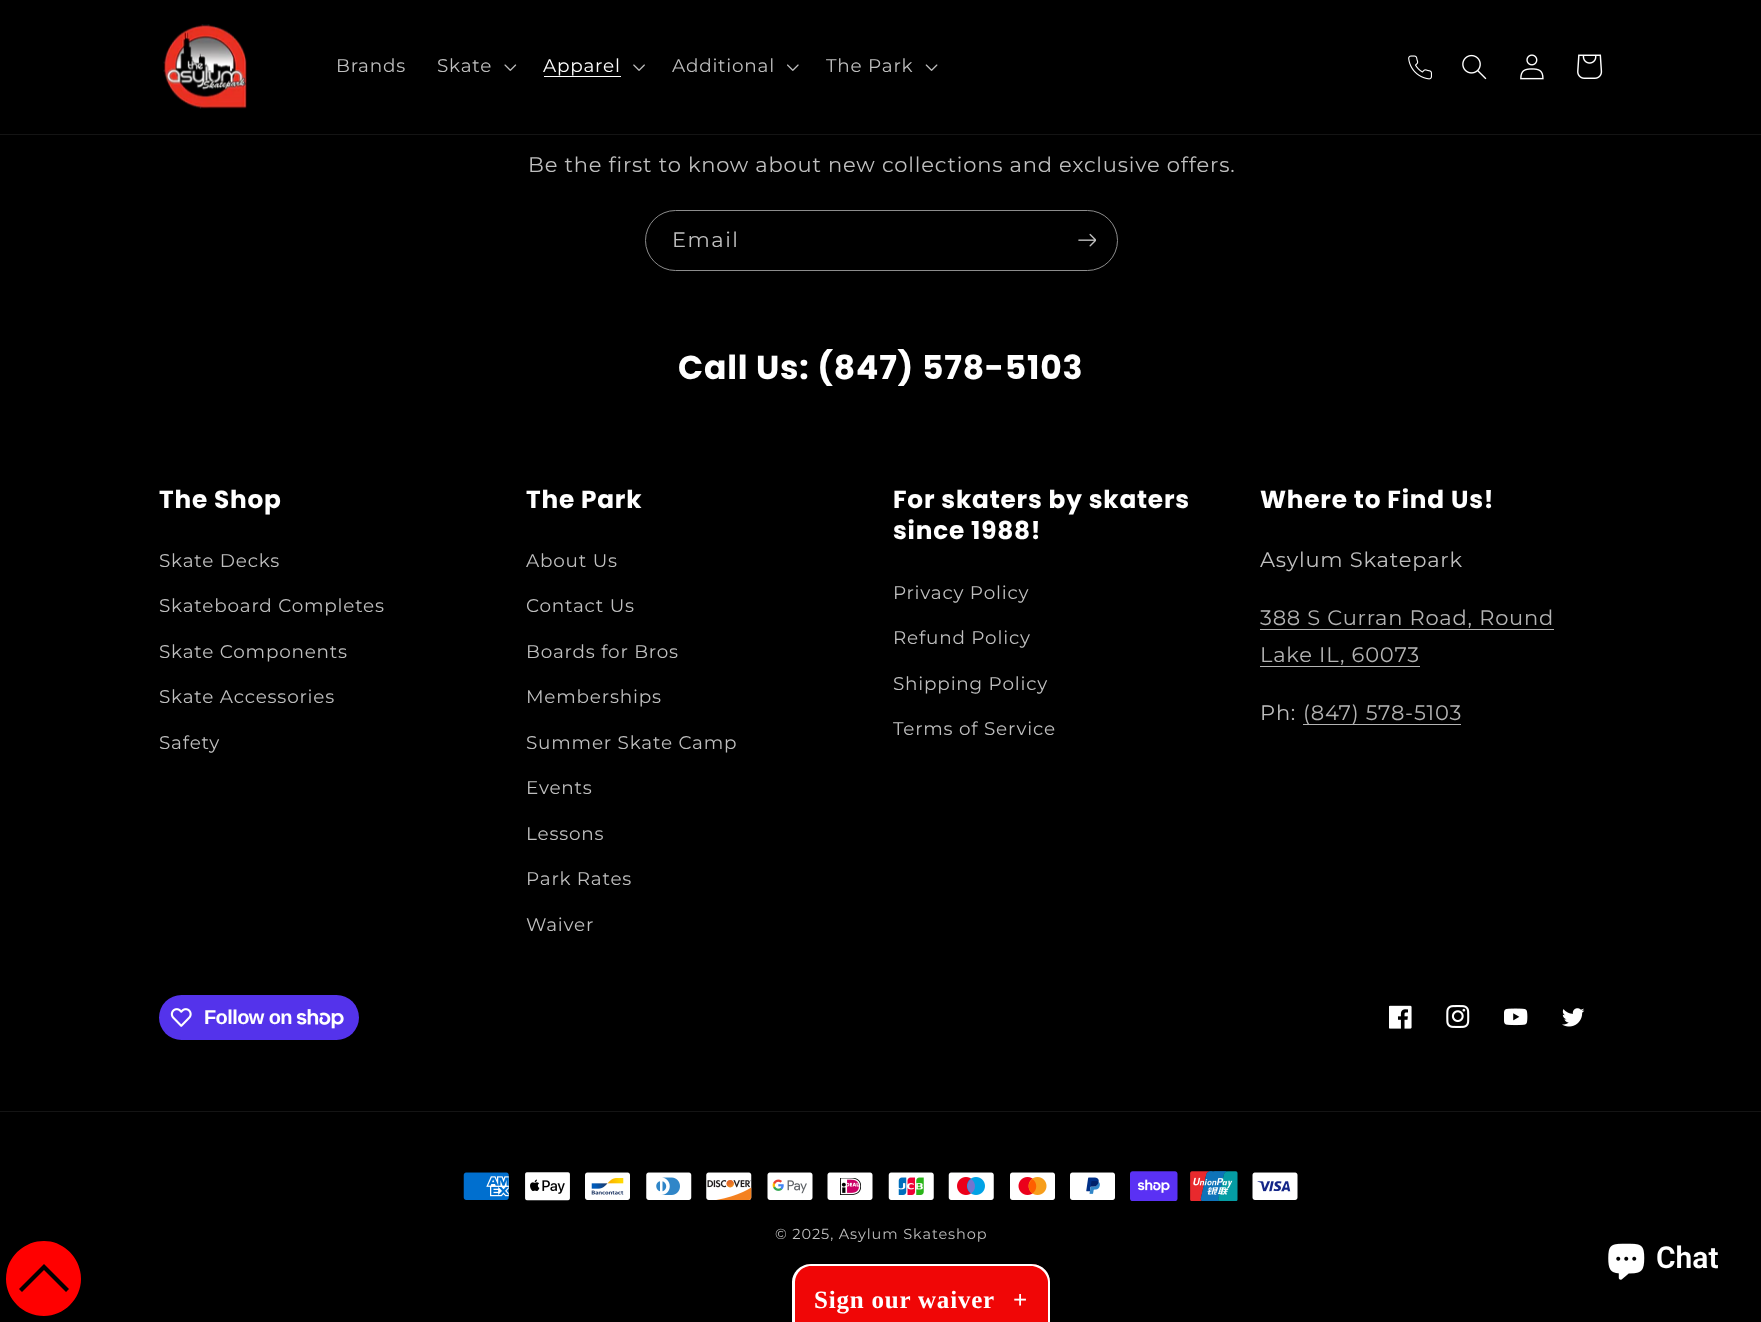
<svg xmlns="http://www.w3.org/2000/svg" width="1761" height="1322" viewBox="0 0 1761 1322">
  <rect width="100%" height="100%" fill="#000000"/>
  <rect x="0" y="134" width="1761" height="1" fill="#141414"/>
  <image x="163" y="24" width="84" height="85" href="img1.png"/>
  <text x="336" y="72" font-family="Montserrat" font-size="18.4" letter-spacing="0.8" fill="#bfbfbf">Brands</text>
  <text x="437" y="72" font-family="Montserrat" font-size="18.4" letter-spacing="0.8" fill="#bfbfbf">Skate</text>
  <image x="504" y="64" width="13" height="7" href="img2.png"/>
  <text x="543" y="72" font-family="Montserrat" font-size="18.4" letter-spacing="0.8" fill="#ffffff">Apparel</text>
  <rect x="544" y="76" width="77" height="1" fill="#ffffff"/>
  <image x="633" y="64" width="12" height="7" href="img3.png"/>
  <text x="672" y="72" font-family="Montserrat" font-size="18.4" letter-spacing="0.8" fill="#bfbfbf">Additional</text>
  <image x="787" y="64" width="12" height="7" href="img4.png"/>
  <text x="826" y="72" font-family="Montserrat" font-size="18.4" letter-spacing="0.8" fill="#bfbfbf">The Park</text>
  <image x="925" y="64" width="13" height="7" href="img5.png"/>
  <image x="1408" y="55" width="24" height="25" href="img6.png"/>
  <image x="1462" y="54" width="25" height="26" href="img7.png"/>
  <image x="1520" y="54" width="24" height="26" href="img8.png"/>
  <image x="1577" y="54" width="26" height="25" href="img9.png"/>
  <text x="528" y="172" font-family="Montserrat" font-size="21" letter-spacing="0.8" fill="#bfbfbf">Be the first to know about new collections and exclusive offers.</text>
  <rect x="645.5" y="210.5" width="472" height="60" rx="30" fill="none" stroke="#8c8c8c"/>
  <text x="672" y="247" font-family="Montserrat" font-size="21" letter-spacing="1.5" fill="#bfbfbf">Email</text>
  <image x="1078" y="233" width="18" height="14" href="img10.png"/>
  <text x="678" y="379" font-family="Poppins" font-size="33" font-weight="bold" letter-spacing="0.8" fill="#ffffff">Call Us: (847) 578-5103</text>
  <text x="159" y="508" font-family="Poppins" font-size="24.75" font-weight="bold" letter-spacing="0.8" fill="#ffffff">The Shop</text>
  <text x="159" y="567" font-family="Montserrat" font-size="18.4" letter-spacing="0.8" fill="#bfbfbf">Skate Decks</text>
  <text x="159" y="612" font-family="Montserrat" font-size="18.4" letter-spacing="0.8" fill="#bfbfbf">Skateboard Completes</text>
  <text x="159" y="658" font-family="Montserrat" font-size="18.4" letter-spacing="0.8" fill="#bfbfbf">Skate Components</text>
  <text x="159" y="703" font-family="Montserrat" font-size="18.4" letter-spacing="0.8" fill="#bfbfbf">Skate Accessories</text>
  <text x="159" y="749" font-family="Montserrat" font-size="18.4" letter-spacing="0.8" fill="#bfbfbf">Safety</text>
  <text x="526" y="508" font-family="Poppins" font-size="24.75" font-weight="bold" letter-spacing="0.8" fill="#ffffff">The Park</text>
  <text x="526" y="567" font-family="Montserrat" font-size="18.4" letter-spacing="0.8" fill="#bfbfbf">About Us</text>
  <text x="526" y="612" font-family="Montserrat" font-size="18.4" letter-spacing="0.8" fill="#bfbfbf">Contact Us</text>
  <text x="526" y="658" font-family="Montserrat" font-size="18.4" letter-spacing="0.8" fill="#bfbfbf">Boards for Bros</text>
  <text x="526" y="703" font-family="Montserrat" font-size="18.4" letter-spacing="0.8" fill="#bfbfbf">Memberships</text>
  <text x="526" y="749" font-family="Montserrat" font-size="18.4" letter-spacing="0.8" fill="#bfbfbf">Summer Skate Camp</text>
  <text x="526" y="794" font-family="Montserrat" font-size="18.4" letter-spacing="0.8" fill="#bfbfbf">Events</text>
  <text x="526" y="840" font-family="Montserrat" font-size="18.4" letter-spacing="0.8" fill="#bfbfbf">Lessons</text>
  <text x="526" y="885" font-family="Montserrat" font-size="18.4" letter-spacing="0.8" fill="#bfbfbf">Park Rates</text>
  <text x="526" y="931" font-family="Montserrat" font-size="18.4" letter-spacing="0.8" fill="#bfbfbf">Waiver</text>
  <text x="893" y="508" font-family="Poppins" font-size="24.75" font-weight="bold" letter-spacing="0.8" fill="#ffffff">For skaters by skaters</text>
  <text x="893" y="539" font-family="Poppins" font-size="24.75" font-weight="bold" letter-spacing="0.8" fill="#ffffff">since 1988!</text>
  <text x="893" y="599" font-family="Montserrat" font-size="18.4" letter-spacing="0.8" fill="#bfbfbf">Privacy Policy</text>
  <text x="893" y="644" font-family="Montserrat" font-size="18.4" letter-spacing="0.8" fill="#bfbfbf">Refund Policy</text>
  <text x="893" y="690" font-family="Montserrat" font-size="18.4" letter-spacing="0.8" fill="#bfbfbf">Shipping Policy</text>
  <text x="893" y="735" font-family="Montserrat" font-size="18.4" letter-spacing="0.8" fill="#bfbfbf">Terms of Service</text>
  <text x="1260" y="508" font-family="Poppins" font-size="24.75" font-weight="bold" letter-spacing="0.8" fill="#ffffff">Where to Find Us!</text>
  <text x="1260" y="567" font-family="Montserrat" font-size="21" letter-spacing="0.8" fill="#bfbfbf">Asylum Skatepark</text>
  <text x="1260" y="625" font-family="Montserrat" font-size="21" letter-spacing="0.8" fill="#b3b3b3">388 S Curran Road, Round</text>
  <rect x="1260" y="629" width="294" height="1" fill="#b3b3b3"/>
  <text x="1260" y="662" font-family="Montserrat" font-size="21" letter-spacing="0.8" fill="#b3b3b3">Lake IL, 60073</text>
  <rect x="1260" y="666" width="160" height="1" fill="#b3b3b3"/>
  <text x="1260" y="720" font-family="Montserrat" font-size="21" letter-spacing="0.8" fill="#bfbfbf">Ph:</text>
  <rect x="1303" y="724" width="158" height="1" fill="#b3b3b3"/>
  <text x="1303" y="720" font-family="Montserrat" font-size="21" letter-spacing="0.8" fill="#b3b3b3">(847) 578-5103</text>
  <rect x="159" y="995" width="200" height="45" rx="22.5" fill="#5433eb"/>
  <image x="170" y="1008" width="22" height="19" href="img11.png"/>
  <text x="204" y="1024" font-family="Liberation Sans" font-size="20" font-weight="bold" letter-spacing="-0.6" fill="#ffffff">Follow on</text>
  <image x="296" y="1009" width="48" height="20" href="img12.png"/>
  <image x="1389" y="1005" width="23" height="24" href="img13.png"/>
  <image x="1446" y="1005" width="24" height="23" href="img14.png"/>
  <image x="1504" y="1008" width="24" height="18" href="img15.png"/>
  <image x="1562" y="1008" width="23" height="19" href="img16.png"/>
  <rect x="0" y="1111" width="1761" height="1" fill="#141414"/>
  <image x="463" y="1172" width="46" height="28" href="img17.png"/>
  <image x="525" y="1172" width="45" height="29" href="img18.png"/>
  <image x="585" y="1172" width="45" height="28" href="img19.png"/>
  <image x="646" y="1172" width="46" height="28" href="img20.png"/>
  <image x="706" y="1172" width="46" height="28" href="img21.png"/>
  <image x="767" y="1172" width="46" height="28" href="img22.png"/>
  <image x="827" y="1172" width="46" height="28" href="img23.png"/>
  <image x="888" y="1172" width="46" height="28" href="img24.png"/>
  <image x="948" y="1172" width="46" height="28" href="img25.png"/>
  <image x="1010" y="1172" width="45" height="28" href="img26.png"/>
  <image x="1070" y="1172" width="45" height="28" href="img27.png"/>
  <image x="1130" y="1171" width="48" height="30" href="img28.png"/>
  <image x="1190" y="1171" width="48" height="30" href="img29.png"/>
  <image x="1252" y="1172" width="46" height="28" href="img30.png"/>
  <text x="775" y="1239" font-family="Montserrat" font-size="14.5" letter-spacing="0.9" fill="#bfbfbf">© 2025, Asylum Skateshop</text>
  <path d="M44 1241C23 1241 6 1258 6 1279C6 1299 23 1316 44 1316C64 1316 81 1299 81 1279C81 1258 64 1241 44 1241ZM66 1292L44 1270L22 1292L19 1289L44 1264L69 1289Z" fill="#ff0000" fill-rule="evenodd"/>
  <image x="1608" y="1243" width="37" height="37" href="img31.png"/>
  <text x="1656" y="1268" font-family="Roboto" font-size="30" font-weight="600" fill="#ffffff">Chat</text>
  <path d="M812 1264H1031C1041.5 1264 1050 1272.5 1050 1283V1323H793V1283C793 1272.5 801.5 1264 812 1264Z" fill="#f00606"/>
  <path d="M811 1264H1031C1042 1264 1050 1272 1050 1282V1322H792V1282C792 1272 801 1264 811 1264ZM811 1266H1031C1040 1266 1048 1274 1048 1282V1322H795V1282C795 1274 802 1266 811 1266Z" fill="#ffffff" fill-rule="evenodd"/>
  <text x="814" y="1308" font-family="Liberation Serif" font-size="25" font-weight="bold" letter-spacing="0.8" fill="#ffffff">Sign our waiver</text>
  <text x="1013" y="1308" font-family="Liberation Serif" font-size="25" font-weight="bold" letter-spacing="0.8" fill="#ffffff">+</text>
</svg>
